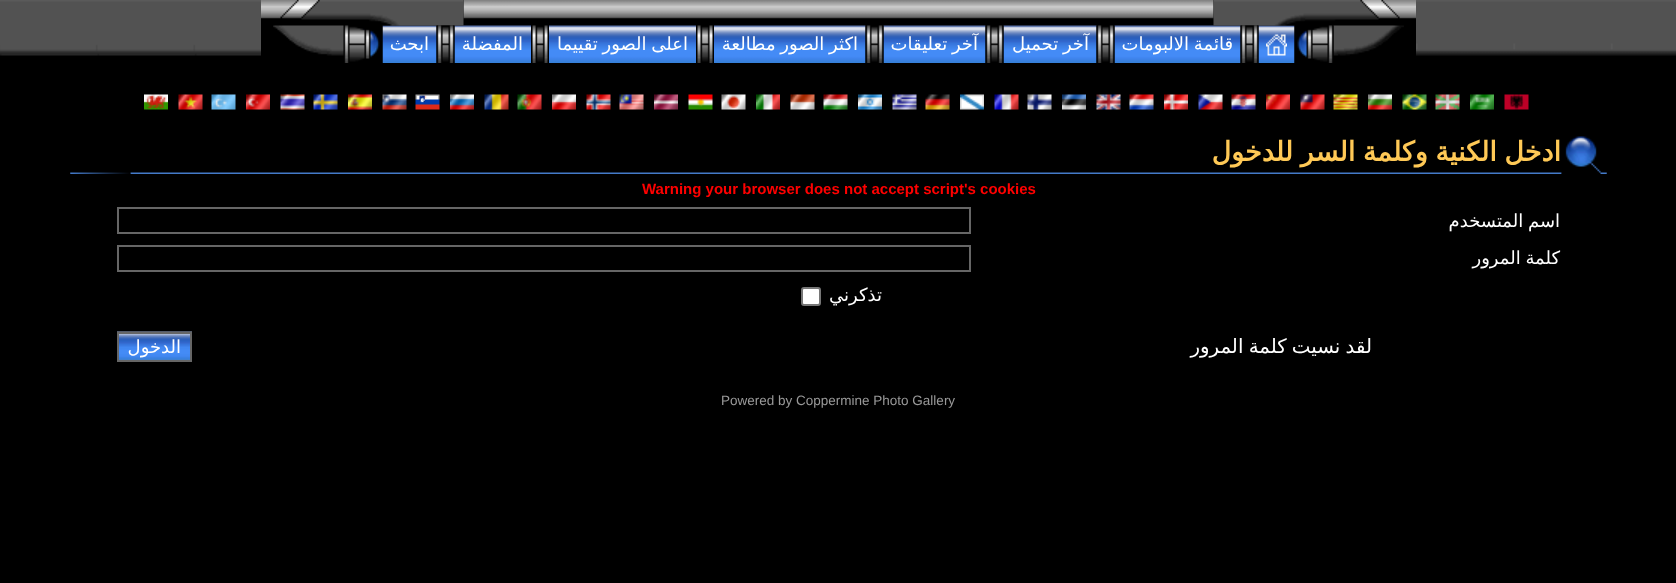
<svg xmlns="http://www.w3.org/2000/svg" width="1676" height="583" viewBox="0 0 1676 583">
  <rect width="100%" height="100%" fill="#000000"/>
  <image x="1416" y="0" width="260" height="56" href="img1.png"/>
  <image x="463" y="0" width="751" height="19" href="img3.png"/>
  <image x="1258" y="25" width="37" height="38" href="img7.png"/>
  <image x="1114" y="25" width="127" height="38" href="img10.png"/>
  <image x="1213" y="0" width="203" height="26" href="img2.png"/>
  <image x="454" y="25" width="77" height="38" href="img19.png"/>
  <image x="382" y="25" width="55" height="38" href="img21.png"/>
  <image x="261" y="0" width="203" height="26" href="img4.png"/>
  <image x="1333" y="25" width="71" height="31" href="img5.png"/>
  <image x="1294" y="25" width="40" height="38" href="img6.png"/>
  <image x="1266" y="34" width="21" height="22" href="img8.png"/>
  <image x="1240" y="25" width="19" height="38" href="img9.png"/>
  <text x="1233" y="50" word-spacing="-1" font-family="DejaVu Sans" font-size="18" direction="rtl" fill="#ffffff">قائمة الالبومات</text>
  <image x="1003" y="25" width="94" height="38" href="img12.png"/>
  <image x="1096" y="25" width="19" height="38" href="img11.png"/>
  <text x="1089" y="50" word-spacing="-1" font-family="DejaVu Sans" font-size="18" direction="rtl" fill="#ffffff">آخر تحميل</text>
  <image x="883" y="25" width="103" height="38" href="img13.png"/>
  <image x="985" y="25" width="19" height="38" href="img11.png"/>
  <text x="978" y="50" word-spacing="-1" font-family="DejaVu Sans" font-size="18" direction="rtl" fill="#ffffff">آخر تعليقات</text>
  <image x="714" y="25" width="152" height="38" href="img15.png"/>
  <image x="865" y="25" width="19" height="38" href="img14.png"/>
  <text x="858" y="50" word-spacing="-1" font-family="DejaVu Sans" font-size="18" direction="rtl" fill="#ffffff">اكثر الصور مطالعة</text>
  <image x="697" y="25" width="16" height="38" href="img16.png"/>
  <image x="549" y="25" width="147" height="38" href="img17.png"/>
  <text x="688" y="50" word-spacing="-1" font-family="DejaVu Sans" font-size="18" direction="rtl" fill="#ffffff">اعلى الصور تقييما</text>
  <image x="532" y="25" width="16" height="38" href="img18.png"/>
  <text x="523" y="50" font-family="DejaVu Sans" font-size="18" direction="rtl" fill="#ffffff">المفضلة</text>
  <image x="436" y="25" width="19" height="38" href="img20.png"/>
  <text x="429" y="50" font-family="DejaVu Sans" font-size="18" direction="rtl" fill="#ffffff">ابحث</text>
  <image x="344" y="25" width="39" height="38" href="img22.png"/>
  <image x="273" y="25" width="71" height="31" href="img23.png"/>
  <image x="0" y="0" width="261" height="56" href="img24.png"/>
  <image x="1504" y="94" width="25" height="16" href="img25.png"/>
  <image x="1470" y="94" width="24" height="16" href="img26.png"/>
  <image x="1435" y="94" width="25" height="16" href="img27.png"/>
  <image x="1402" y="94" width="25" height="16" href="img28.png"/>
  <image x="1368" y="94" width="24" height="16" href="img29.png"/>
  <image x="1333" y="94" width="25" height="16" href="img30.png"/>
  <image x="1300" y="94" width="25" height="16" href="img31.png"/>
  <image x="1266" y="94" width="24" height="16" href="img32.png"/>
  <image x="1231" y="94" width="25" height="16" href="img33.png"/>
  <image x="1198" y="94" width="25" height="16" href="img34.png"/>
  <image x="1164" y="94" width="24" height="16" href="img35.png"/>
  <image x="1129" y="94" width="25" height="16" href="img36.png"/>
  <image x="1096" y="94" width="25" height="16" href="img37.png"/>
  <image x="1062" y="94" width="24" height="16" href="img38.png"/>
  <image x="1027" y="94" width="25" height="16" href="img39.png"/>
  <image x="994" y="94" width="25" height="16" href="img40.png"/>
  <image x="960" y="94" width="24" height="16" href="img41.png"/>
  <image x="925" y="94" width="25" height="16" href="img42.png"/>
  <image x="892" y="94" width="25" height="16" href="img43.png"/>
  <image x="858" y="94" width="24" height="16" href="img44.png"/>
  <image x="823" y="94" width="25" height="16" href="img45.png"/>
  <image x="790" y="94" width="25" height="16" href="img46.png"/>
  <image x="756" y="94" width="24" height="16" href="img47.png"/>
  <image x="721" y="94" width="25" height="16" href="img48.png"/>
  <image x="688" y="94" width="25" height="16" href="img49.png"/>
  <image x="654" y="94" width="24" height="16" href="img50.png"/>
  <image x="619" y="94" width="25" height="16" href="img51.png"/>
  <image x="586" y="94" width="25" height="16" href="img52.png"/>
  <image x="552" y="94" width="24" height="16" href="img53.png"/>
  <image x="517" y="94" width="25" height="16" href="img54.png"/>
  <image x="484" y="94" width="25" height="16" href="img55.png"/>
  <image x="450" y="94" width="24" height="16" href="img56.png"/>
  <image x="415" y="94" width="25" height="16" href="img57.png"/>
  <image x="382" y="94" width="25" height="16" href="img58.png"/>
  <image x="348" y="94" width="24" height="16" href="img59.png"/>
  <image x="313" y="94" width="25" height="16" href="img60.png"/>
  <image x="280" y="94" width="25" height="16" href="img61.png"/>
  <image x="246" y="94" width="24" height="16" href="img62.png"/>
  <image x="211" y="94" width="25" height="16" href="img63.png"/>
  <image x="178" y="94" width="25" height="16" href="img64.png"/>
  <image x="144" y="94" width="24" height="16" href="img65.png"/>
  <image x="1561" y="172" width="46" height="2" href="img66.png"/>
  <image x="130" y="172" width="1432" height="2" href="img68.png"/>
  <image x="1561" y="136" width="46" height="38" href="img67.png"/>
  <text x="1561" y="161" word-spacing="-1" font-family="DejaVu Sans" font-size="27" font-weight="bold" direction="rtl" fill="#ffc956">ادخل الكنية وكلمة السر للدخول</text>
  <image x="70" y="172" width="61" height="2" href="img69.png"/>
  <image x="70" y="172" width="61" height="2" href="img70.png"/>
  <text x="642" y="194" font-family="Liberation Sans" font-size="15" font-weight="bold" fill="#ff0000">Warning your browser does not accept script's cookies</text>
  <text x="1560" y="227" word-spacing="-1" font-family="DejaVu Sans" font-size="18" direction="rtl" fill="#ffffff">اسم المتسخدم</text>
  <rect x="118" y="208" width="852" height="25" fill="none" stroke="#666666" stroke-width="2"/>
  <text x="1560" y="264" word-spacing="-1" font-family="DejaVu Sans" font-size="18" direction="rtl" fill="#ffffff">كلمة المرور</text>
  <rect x="118" y="246" width="852" height="25" fill="none" stroke="#666666" stroke-width="2"/>
  <text x="882" y="301" font-family="DejaVu Sans" font-size="18" direction="rtl" fill="#ffffff">تذكرني</text>
  <rect x="802" y="288" width="18" height="17" rx="2" fill="#ffffff" stroke="#767676" stroke-width="2"/>
  <text x="1372" y="353" word-spacing="-1" font-family="DejaVu Sans" font-size="19.75" direction="rtl" fill="#ffffff">لقد نسيت كلمة المرور</text>
  <image x="117" y="331" width="75" height="29" href="img71.png"/>
  <rect x="118" y="333" width="73" height="28" fill="none" stroke="#666666" stroke-width="2"/>
  <text x="181" y="353" font-family="DejaVu Sans" font-size="18" direction="rtl" fill="#ffffff">الدخول</text>
  <text x="721" y="405" font-family="Liberation Sans" font-size="13.5" fill="#999999">Powered by Coppermine Photo Gallery</text>
</svg>
